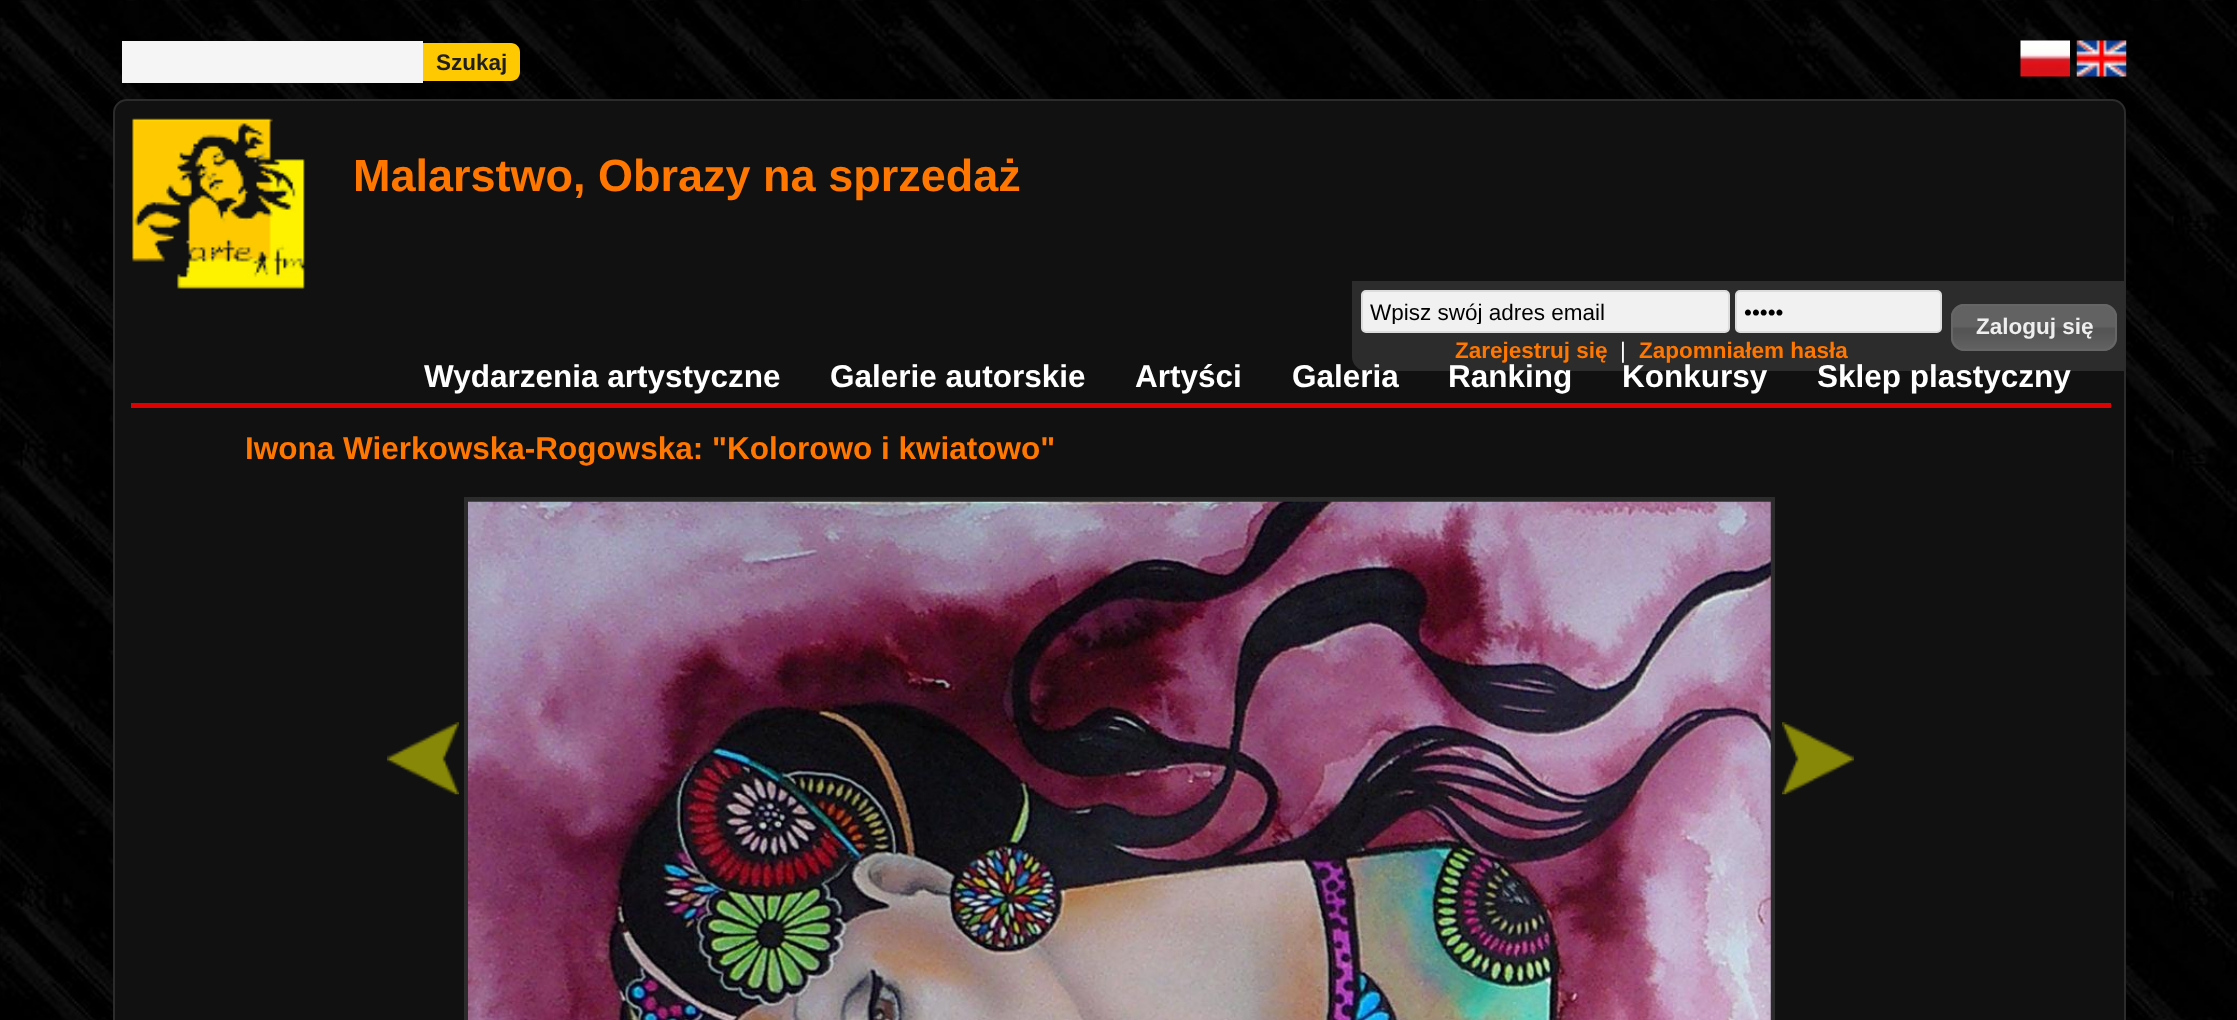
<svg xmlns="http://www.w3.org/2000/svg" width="2237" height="1020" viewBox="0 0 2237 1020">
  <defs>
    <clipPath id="clip1"><rect x="1370" y="299" width="351" height="25"/></clipPath>
  </defs>
  <rect width="100%" height="100%" fill="#ffffff"/>
  <image x="0" y="0" width="2237" height="1020" href="img1.png"/>
  <rect x="122" y="41" width="301" height="42" fill="#f5f5f5"/>
  <path d="M423 43H511C516 43 520 47 520 52V72C520 77 516 81 511 81H423Z" fill="#fec900"/>
  <text x="436" y="70" font-family="Liberation Sans" font-size="22.5" font-weight="bold" fill="#1f1f1f">Szukaj</text>
  <image x="2020" y="40" width="50" height="37" href="img2.png"/>
  <image x="2076" y="40" width="51" height="37" href="img3.png"/>
  <rect x="114" y="100" width="2011" height="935" rx="13" fill="#111111" stroke="#2c2c2c" stroke-width="2"/>
  <image x="132" y="118" width="173" height="171" href="img4.png"/>
  <text x="353" y="191" font-family="Liberation Sans" font-size="45" font-weight="bold" fill="#ff7700">Malarstwo, Obrazy na sprzedaż</text>
  <path d="M1352 281H2124V371H1366C1358.5 371 1352 364.5 1352 357Z" fill="#2c2c2c"/>
  <rect x="1362" y="291" width="367" height="41" rx="4" fill="#f1f1f1" stroke="#dcdcdc" stroke-width="2"/>
  <g clip-path="url(#clip1)">
    <text x="1370" y="320" font-family="Liberation Sans" font-size="22.5" fill="#000000">Wpisz swój adres email</text>
  </g>
  <rect x="1736" y="291" width="205" height="41" rx="4" fill="#f1f1f1" stroke="#dcdcdc" stroke-width="2"/>
  <text x="1744" y="320" font-family="Liberation Sans" font-size="22.5" fill="#000000">•••••</text>
  <text x="1455" y="358" font-family="Liberation Sans" font-size="22.5" font-weight="bold" fill="#ff7700">Zarejestruj się</text>
  <text x="1620" y="358" font-family="Liberation Sans" font-size="22.5" fill="#ffffff">|</text>
  <text x="1639" y="358" font-family="Liberation Sans" font-size="22.5" font-weight="bold" fill="#ff7700">Zapomniałem hasła</text>
  <image x="1951" y="304" width="166" height="47" href="img5.png"/>
  <rect x="1952" y="305" width="164" height="45" rx="13" fill="none" stroke="#666666" stroke-width="2"/>
  <text x="1976" y="334" font-family="Liberation Sans" font-size="22.5" font-weight="bold" fill="#eeeeee">Zaloguj się</text>
  <rect x="131" y="403" width="1980" height="5" fill="#df0000"/>
  <text x="424" y="387" font-family="Liberation Sans" font-size="31.5" font-weight="bold" fill="#ffffff">Wydarzenia artystyczne</text>
  <text x="830" y="387" font-family="Liberation Sans" font-size="31.5" font-weight="bold" fill="#ffffff">Galerie autorskie</text>
  <text x="1135" y="387" font-family="Liberation Sans" font-size="31.5" font-weight="bold" fill="#ffffff">Artyści</text>
  <text x="1292" y="387" font-family="Liberation Sans" font-size="31.5" font-weight="bold" fill="#ffffff">Galeria</text>
  <text x="1448" y="387" font-family="Liberation Sans" font-size="31.5" font-weight="bold" fill="#ffffff">Ranking</text>
  <text x="1622" y="387" font-family="Liberation Sans" font-size="31.5" font-weight="bold" fill="#ffffff">Konkursy</text>
  <text x="1817" y="387" font-family="Liberation Sans" font-size="31.5" font-weight="bold" fill="#ffffff">Sklep plastyczny</text>
  <text x="245" y="459" font-family="Liberation Sans" font-size="31.5" font-weight="bold" fill="#ff7700">Iwona Wierkowska-Rogowska: "Kolorowo i kwiatowo"</text>
  <image x="387" y="722" width="72" height="73" href="img6.png"/>
  <rect x="464" y="497" width="1311" height="523" fill="#2c2c2c"/>
  <image x="468" y="501" width="1303" height="519" href="img7.png"/>
  <image x="1782" y="722" width="72" height="73" href="img8.png"/>
</svg>
